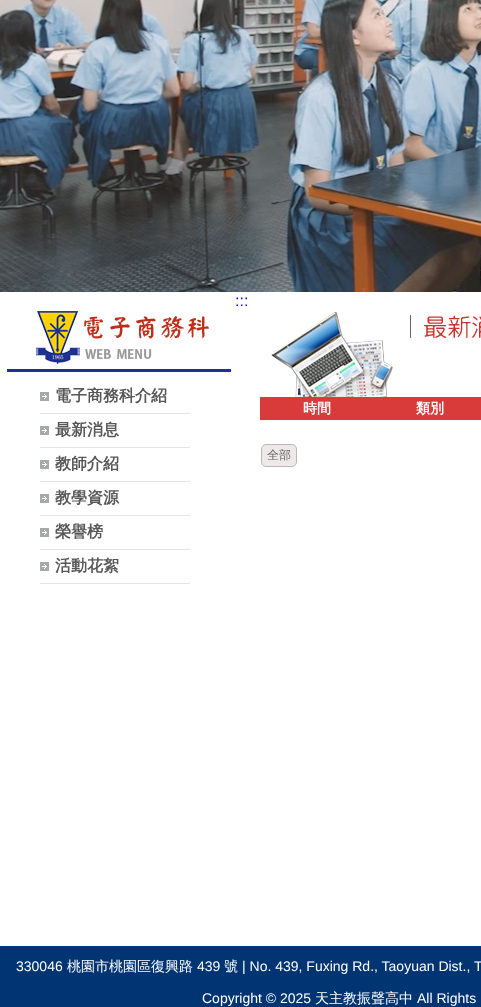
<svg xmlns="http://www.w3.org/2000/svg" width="481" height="1007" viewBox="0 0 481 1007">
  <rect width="100%" height="100%" fill="#ffffff"/>
  <image x="0" y="0" width="481" height="292" href="img1.png"/>
  <image x="7" y="311" width="224" height="61" href="img2.png"/>
  <rect x="40" y="413" width="150" height="1" fill="#e4e4e4"/>
  <image x="40" y="392" width="9" height="9" href="img3.png"/>
  <text x="55" y="401" font-family="WenQuanYi Zen Hei" font-size="16" font-weight="bold" fill="#575757">電子商務科介紹</text>
  <rect x="40" y="447" width="150" height="1" fill="#e4e4e4"/>
  <image x="40" y="426" width="9" height="9" href="img3.png"/>
  <text x="55" y="435" font-family="WenQuanYi Zen Hei" font-size="16" font-weight="bold" fill="#575757">最新消息</text>
  <rect x="40" y="481" width="150" height="1" fill="#e4e4e4"/>
  <image x="40" y="460" width="9" height="9" href="img3.png"/>
  <text x="55" y="469" font-family="WenQuanYi Zen Hei" font-size="16" font-weight="bold" fill="#575757">教師介紹</text>
  <rect x="40" y="515" width="150" height="1" fill="#e4e4e4"/>
  <image x="40" y="494" width="9" height="9" href="img3.png"/>
  <text x="55" y="503" font-family="WenQuanYi Zen Hei" font-size="16" font-weight="bold" fill="#575757">教學資源</text>
  <rect x="40" y="549" width="150" height="1" fill="#e4e4e4"/>
  <image x="40" y="528" width="9" height="9" href="img3.png"/>
  <text x="55" y="537" font-family="WenQuanYi Zen Hei" font-size="16" font-weight="bold" fill="#575757">榮譽榜</text>
  <rect x="40" y="583" width="150" height="1" fill="#e4e4e4"/>
  <image x="40" y="562" width="9" height="9" href="img3.png"/>
  <text x="55" y="571" font-family="WenQuanYi Zen Hei" font-size="16" font-weight="bold" fill="#575757">活動花絮</text>
  <text x="235" y="306" font-family="Liberation Sans" font-size="16" fill="#0000ee">:::</text>
  <image x="271" y="312" width="210" height="85" href="img4.png"/>
  <rect x="260" y="397" width="221" height="23" fill="#d93a3a"/>
  <text x="303" y="413" font-family="WenQuanYi Zen Hei" font-size="14" font-weight="bold" fill="#ffffff">時間</text>
  <text x="416" y="413" font-family="WenQuanYi Zen Hei" font-size="14" font-weight="bold" fill="#ffffff">類別</text>
  <rect x="261.5" y="444.5" width="35" height="22" rx="4.5" fill="#eee8e8" stroke="#b8b8b8"/>
  <text x="267" y="459" font-family="WenQuanYi Zen Hei" font-size="12" font-weight="500" fill="#656565">全部</text>
  <rect x="0" y="946" width="481" height="61" fill="#003472"/>
  <text x="16" y="971" font-family="Liberation Sans" font-size="14" fill="#ffffff">330046</text>
  <text x="67" y="971" font-family="WenQuanYi Zen Hei" font-size="14" font-weight="500" fill="#ffffff">桃園市桃園區復興路</text>
  <text x="197" y="971" font-family="Liberation Sans" font-size="14" fill="#ffffff">439</text>
  <text x="224" y="971" font-family="WenQuanYi Zen Hei" font-size="14" font-weight="500" fill="#ffffff">號</text>
  <text x="242" y="971" font-family="Liberation Sans" font-size="14" fill="#ffffff">| No. 439, Fuxing Rd., Taoyuan Dist., T</text>
  <text x="202" y="1003" font-family="Liberation Sans" font-size="14" fill="#ffffff">Copyright © 2025</text>
  <text x="315" y="1003" font-family="WenQuanYi Zen Hei" font-size="14" font-weight="500" fill="#ffffff">天主教振聲高中</text>
  <text x="417" y="1003" font-family="Liberation Sans" font-size="14" fill="#ffffff">All Rights</text>
</svg>
